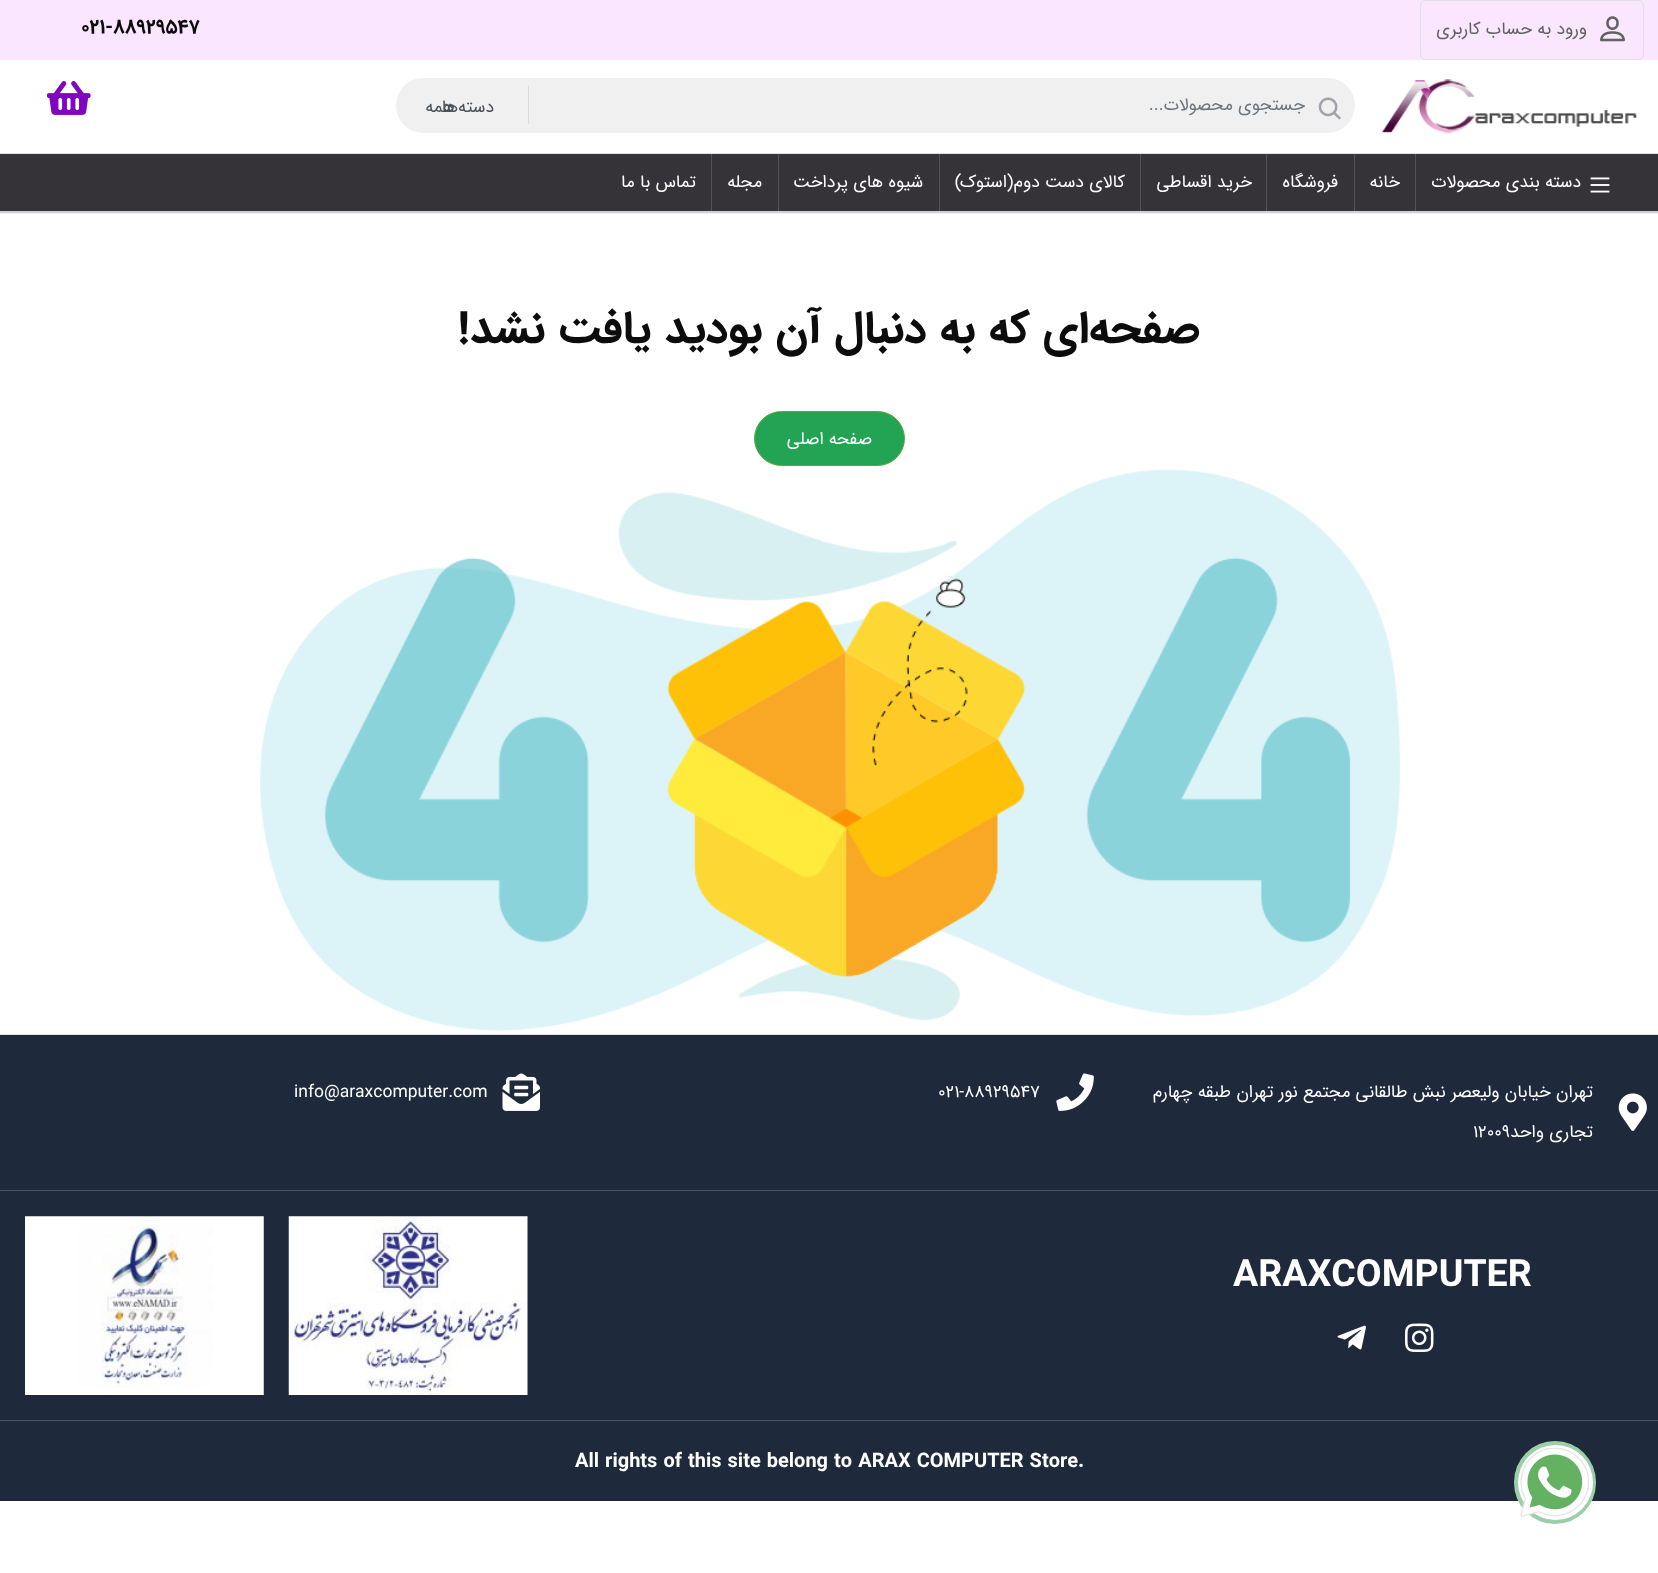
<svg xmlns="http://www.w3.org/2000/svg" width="1658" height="1573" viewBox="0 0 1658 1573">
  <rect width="100%" height="100%" fill="#ffffff"/>
  <rect x="0" y="0" width="1658" height="60" fill="#fbe6ff"/>
  <rect x="1420.5" y="0.5" width="223" height="59" rx="5.5" fill="none" stroke="#e0e0e2"/>
  <image x="1600" y="16" width="25" height="26" href="img1.png"/>
  <text x="1587" y="34" font-family="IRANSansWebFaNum" font-size="17.5" direction="rtl" fill="#616161">ورود به حساب کاربری</text>
  <text x="81" y="33" font-family="IRANSansWebFaNum" font-size="20" font-weight="bold" fill="#0c0c0c">021-88929547</text>
  <image x="1382" y="79" width="255" height="55" href="img2.png"/>
  <rect x="396" y="78" width="959" height="55" rx="27.5" fill="#f0f0f1"/>
  <image x="1318" y="97" width="23" height="23" href="img3.png"/>
  <text x="1305" y="110" font-family="IRANSansWebFaNum" font-size="17.5" direction="rtl" fill="#6c757d">جستجوی محصولات...</text>
  <rect x="528" y="86" width="1" height="38" fill="#d6dce2"/>
  <text x="454" y="112" font-family="IRANSansWebFaNum" font-size="17.5" direction="rtl" fill="#495057">همه</text>
  <text x="494" y="112" font-family="IRANSansWebFaNum" font-size="17.5" direction="rtl" fill="#495057">دسته‌ها</text>
  <image x="46" y="81" width="45" height="34" href="img4.png"/>
  <path d="M0 211V214H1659V155V211Z" fill="#f2f2f2"/>
  <path d="M0 211V213H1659V154V211Z" fill="#d0d0d0"/>
  <rect x="0" y="154" width="1658" height="57" fill="#353338"/>
  <rect x="0" y="153" width="1658" height="1" fill="#dfdfdf"/>
  <rect x="1415" y="154" width="1" height="57" fill="#535256"/>
  <image x="1590" y="177" width="20" height="16" href="img5.png"/>
  <text x="1581" y="187" font-family="IRANSansWebFaNum" font-size="17.5" direction="rtl" fill="#ffffff">دسته بندی محصولات</text>
  <rect x="1354" y="154" width="1" height="57" fill="#535256"/>
  <text x="1400" y="187" font-family="IRANSansWebFaNum" font-size="17.5" direction="rtl" fill="#ffffff">خانه</text>
  <rect x="1266" y="154" width="1" height="57" fill="#535256"/>
  <text x="1338" y="187" font-family="IRANSansWebFaNum" font-size="17.5" direction="rtl" fill="#ffffff">فروشگاه</text>
  <rect x="1140" y="154" width="1" height="57" fill="#535256"/>
  <text x="1252" y="187" font-family="IRANSansWebFaNum" font-size="17.5" direction="rtl" fill="#ffffff">خرید اقساطی</text>
  <rect x="939" y="154" width="1" height="57" fill="#535256"/>
  <text x="1125" y="187" font-family="IRANSansWebFaNum" font-size="17.5" direction="rtl" fill="#ffffff">کالای دست دوم(استوک)</text>
  <rect x="778" y="154" width="1" height="57" fill="#535256"/>
  <text x="923" y="187" font-family="IRANSansWebFaNum" font-size="17.5" direction="rtl" fill="#ffffff">شیوه های پرداخت</text>
  <rect x="711" y="154" width="1" height="57" fill="#535256"/>
  <text x="762" y="187" font-family="IRANSansWebFaNum" font-size="17.5" direction="rtl" fill="#ffffff">مجله</text>
  <text x="696" y="187" font-family="IRANSansWebFaNum" font-size="17.5" direction="rtl" fill="#ffffff">تماس با ما</text>
  <text x="1200" y="342" font-family="IRANSansWebFaNum" font-size="45" font-weight="bold" direction="rtl" fill="#0c0c0c">صفحه‌ای که به دنبال آن بودید یافت نشد!</text>
  <rect x="754.5" y="411.5" width="150" height="54" rx="27" fill="#23a455" stroke="#5fa73f"/>
  <text x="872" y="444" font-family="IRANSansWebFaNum" font-size="17.5" direction="rtl" fill="#ffffff">صفحه اصلی</text>
  <image x="260" y="469" width="1140" height="562" href="img6.png"/>
  <rect x="0" y="1034" width="1658" height="1" fill="#e0e0e2"/>
  <rect x="0" y="1035" width="1658" height="155" fill="#1e293b"/>
  <image x="1618" y="1093" width="29" height="38" href="img7.png"/>
  <text x="1593" y="1097" font-family="IRANSansWebFaNum" font-size="17.5" direction="rtl" fill="#ffffff">تهران خیابان ولیعصر نبش طالقانی مجتمع نور تهران</text>
  <text x="1231" y="1097" font-family="IRANSansWebFaNum" font-size="17.5" direction="rtl" fill="#ffffff">طبقه چهارم</text>
  <text x="1593" y="1137" font-family="IRANSansWebFaNum" font-size="17.5" direction="rtl" fill="#ffffff">تجاری واحد</text>
  <text x="1473" y="1137" font-family="IRANSansWebFaNum" font-size="17.5" fill="#ffffff">12009</text>
  <image x="1056" y="1073" width="38" height="38" href="img8.png"/>
  <text x="938" y="1097" font-family="IRANSansWebFaNum" font-size="17.5" fill="#ffffff">021-88929547</text>
  <image x="502" y="1073" width="38" height="38" href="img9.png"/>
  <text x="294" y="1097" font-family="IRANSansWebFaNum" font-size="17.5" fill="#ffffff">info@araxcomputer.com</text>
  <rect x="0" y="1191" width="1658" height="229" fill="#1e293b"/>
  <rect x="0" y="1190" width="1658" height="1" fill="#475569"/>
  <rect x="0" y="1420" width="1658" height="1" fill="#475569"/>
  <text x="1233" y="1286" font-family="IRANSansWebFaNum" font-size="37.5" font-weight="bold" fill="#ffffff">ARAXCOMPUTER</text>
  <image x="1405" y="1323" width="29" height="29" href="img10.png"/>
  <image x="1337" y="1325" width="29" height="25" href="img11.png"/>
  <image x="288" y="1216" width="240" height="179" href="img12.png"/>
  <image x="25" y="1216" width="239" height="179" href="img13.png"/>
  <rect x="0" y="1421" width="1658" height="80" fill="#1e293b"/>
  <text x="575" y="1467" font-family="IRANSansWebFaNum" font-size="20" font-weight="bold" fill="#ffffff">All rights of this site belong to ARAX COMPUTER Store.</text>
  <rect x="1514" y="1441" width="82" height="83" rx="41" fill="#9bcfa8"/>
  <circle cx="1555.5" cy="1482.5" r="37.5" fill="#ffffff"/>
  <image x="1520" y="1448" width="70" height="69" href="img14.png"/>
</svg>
